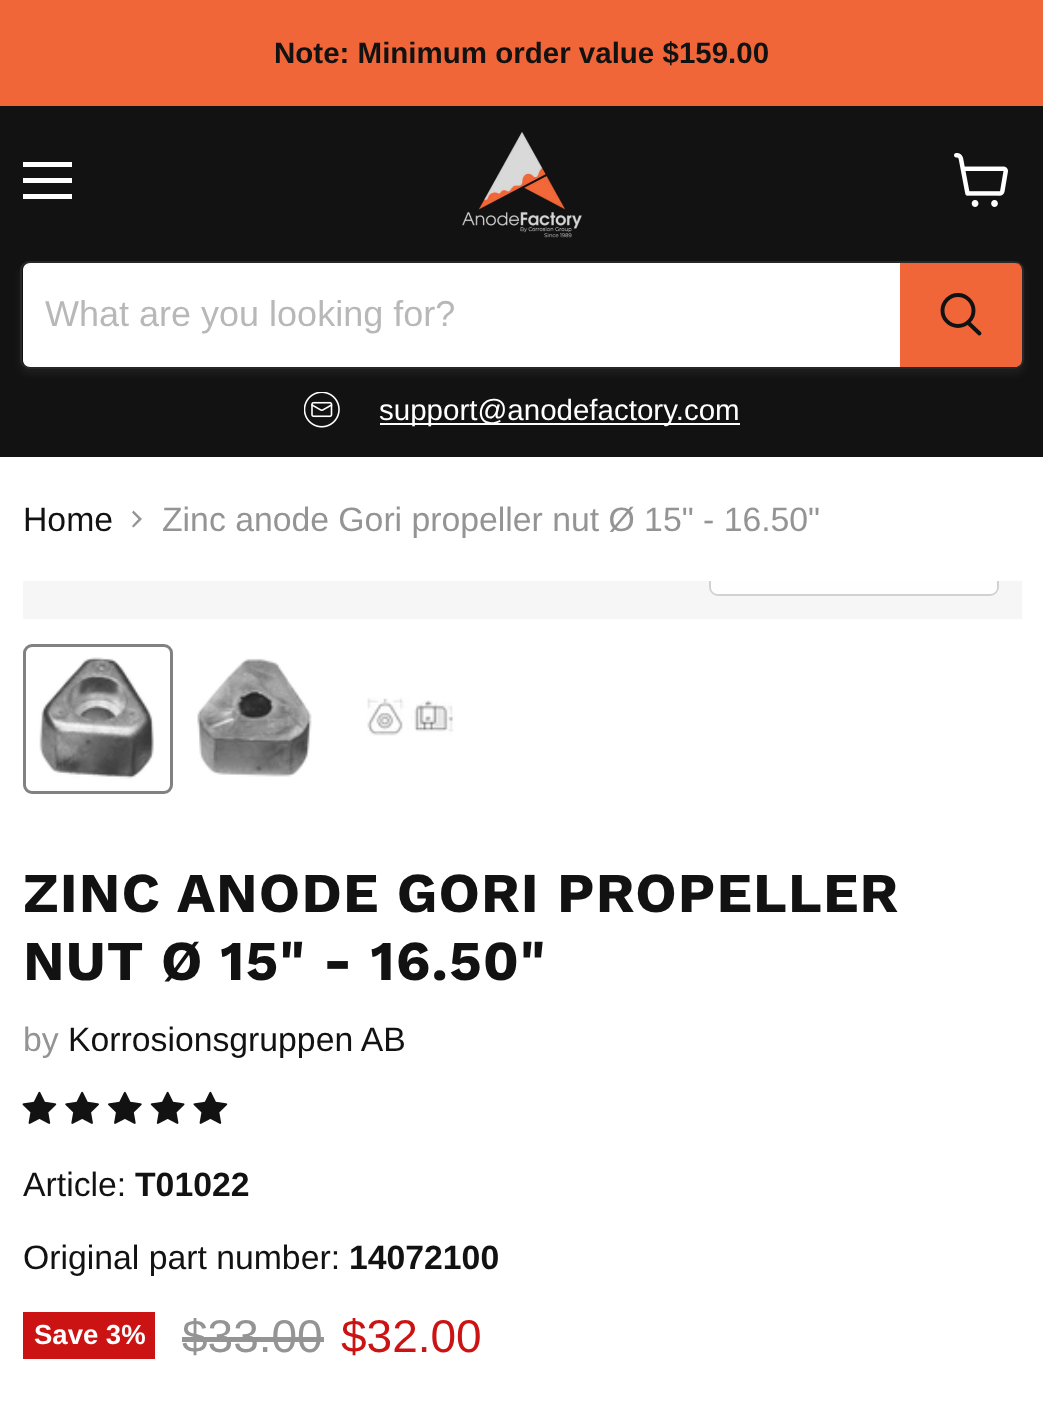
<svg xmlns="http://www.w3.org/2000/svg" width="1043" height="1407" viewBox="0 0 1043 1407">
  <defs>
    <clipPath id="clip1"><path d="M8 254H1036V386H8ZM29 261H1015C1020 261 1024 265 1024 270V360C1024 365 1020 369 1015 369H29C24 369 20 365 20 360V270C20 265 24 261 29 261Z" clip-rule="evenodd"/></clipPath>
    <filter id="blur1" x="-50%" y="-200%" width="200%" height="500%"><feGaussianBlur stdDeviation="3.5"/></filter>
    <clipPath id="clip2"><rect x="23" y="581" width="999" height="38"/></clipPath>
  </defs>
  <rect width="100%" height="100%" fill="#ffffff"/>
  <rect x="0" y="0" width="1043" height="106" fill="#f16638"/>
  <text x="274" y="63" font-family="Liberation Sans" font-size="29.5" font-weight="bold" fill="#121212">Note: Minimum order value $159.00</text>
  <rect x="0" y="106" width="1043" height="351" fill="#121212"/>
  <rect x="23" y="162" width="49" height="5" fill="#ffffff"/>
  <rect x="23" y="178" width="49" height="5" fill="#ffffff"/>
  <rect x="23" y="194" width="49" height="5" fill="#ffffff"/>
  <image x="954" y="153" width="54" height="54" href="img1.png"/>
  <image x="462" y="132" width="120" height="106" href="img2.png"/>
  <g clip-path="url(#clip1)">
    <rect x="20" y="266" width="1004" height="108" rx="9" fill="#808080" fill-opacity="0.11" filter="url(#blur1)"/>
  </g>
  <rect x="21" y="262" width="1002" height="106" rx="8" fill="none" stroke="#808080" stroke-opacity="0.2" stroke-width="2"/>
  <path d="M30 263H900V367H30C26 367 23 364 23 360V270C23 266 26 263 30 263Z" fill="#ffffff"/>
  <text x="45" y="326" font-family="Liberation Sans" font-size="36" fill="#b8b8b8">What are you looking for?</text>
  <path d="M901 264H1015C1018.5 264 1021 266.5 1021 270V360C1021 363.5 1018.5 366 1015 366H901Z" fill="#f16638" stroke="#f16638" stroke-width="2"/>
  <path d="M979.5 333.5L968.5 323" fill="none" stroke="#121212" stroke-width="3.9" stroke-linecap="round"/>
  <circle cx="958" cy="310.5" r="15.5" fill="none" stroke="#121212" stroke-width="3.9"/>
  <image x="304" y="392" width="36" height="36" href="img3.png"/>
  <rect x="380" y="423" width="360" height="2" fill="#ffffff"/>
  <text x="379" y="420" font-family="Liberation Sans" font-size="29.5" fill="#ffffff">support@anodefactory.com</text>
  <text x="23" y="531" font-family="Liberation Sans" font-size="33.75" fill="#121212">Home</text>
  <path d="M132 526L133.5 527.5L142 519L133.5 510.5L132 512.5L138.5 519Z" fill="#949494" fill-rule="evenodd"/>
  <text x="162" y="531" font-family="Liberation Sans" font-size="33.75" fill="#949494">Zinc anode Gori propeller nut Ø 15" - 16.50"</text>
  <rect x="23" y="581" width="999" height="38" fill="#f6f6f6"/>
  <g clip-path="url(#clip2)">
    <rect x="710" y="532" width="288" height="63" rx="8" fill="none" stroke="#d1d1d1" stroke-width="2"/>
  </g>
  <path d="M711 581H997V587C997 591 994 594 990 594H718C714 594 711 591 711 587Z" fill="#ffffff" fill-opacity="0.9"/>
  <rect x="24.5" y="645.5" width="147" height="147" rx="7.5" fill="none" stroke="#818181" stroke-width="3"/>
  <image x="39" y="657" width="115" height="122" href="img4.png"/>
  <image x="197" y="658" width="115" height="119" href="img5.png"/>
  <image x="367" y="697" width="88" height="39" href="img6.png"/>
  <text x="23" y="912" font-family="Work Sans" font-size="56.25" font-weight="bold" letter-spacing="1.1" fill="#121212">ZINC ANODE GORI PROPELLER</text>
  <text x="23" y="980" font-family="Work Sans" font-size="56.25" font-weight="bold" letter-spacing="1.1" fill="#121212">NUT Ø 15" - 16.50"</text>
  <text x="23" y="1051" font-family="Liberation Sans" font-size="33.75" fill="#949494">by</text>
  <text x="68" y="1051" font-family="Liberation Sans" font-size="33.75" fill="#121212">Korrosionsgruppen AB</text>
  <image x="22" y="1091" width="35" height="33" href="img7.png"/>
  <image x="65" y="1091" width="34" height="33" href="img8.png"/>
  <image x="108" y="1091" width="34" height="33" href="img9.png"/>
  <image x="150" y="1091" width="35" height="33" href="img10.png"/>
  <image x="193" y="1091" width="35" height="33" href="img7.png"/>
  <text x="23" y="1196" font-family="Liberation Sans" font-size="33.75" fill="#121212">Article:</text>
  <text x="135" y="1196" font-family="Liberation Sans" font-size="33.75" font-weight="bold" fill="#121212">T01022</text>
  <text x="23" y="1269" font-family="Liberation Sans" font-size="33.75" fill="#121212">Original part number:</text>
  <text x="349" y="1269" font-family="Liberation Sans" font-size="33.75" font-weight="bold" fill="#121212">14072100</text>
  <rect x="23" y="1312" width="132" height="47" fill="#cc1313"/>
  <text x="34" y="1344" font-family="Liberation Sans" font-size="27.5" font-weight="bold" fill="#ffffff">Save 3%</text>
  <text x="182" y="1352" font-family="Liberation Sans" font-size="46" fill="#949494">$33.00</text>
  <rect x="182" y="1337" width="142" height="5" fill="#949494"/>
  <text x="341" y="1352" font-family="Liberation Sans" font-size="46" fill="#cc1313">$32.00</text>
</svg>
